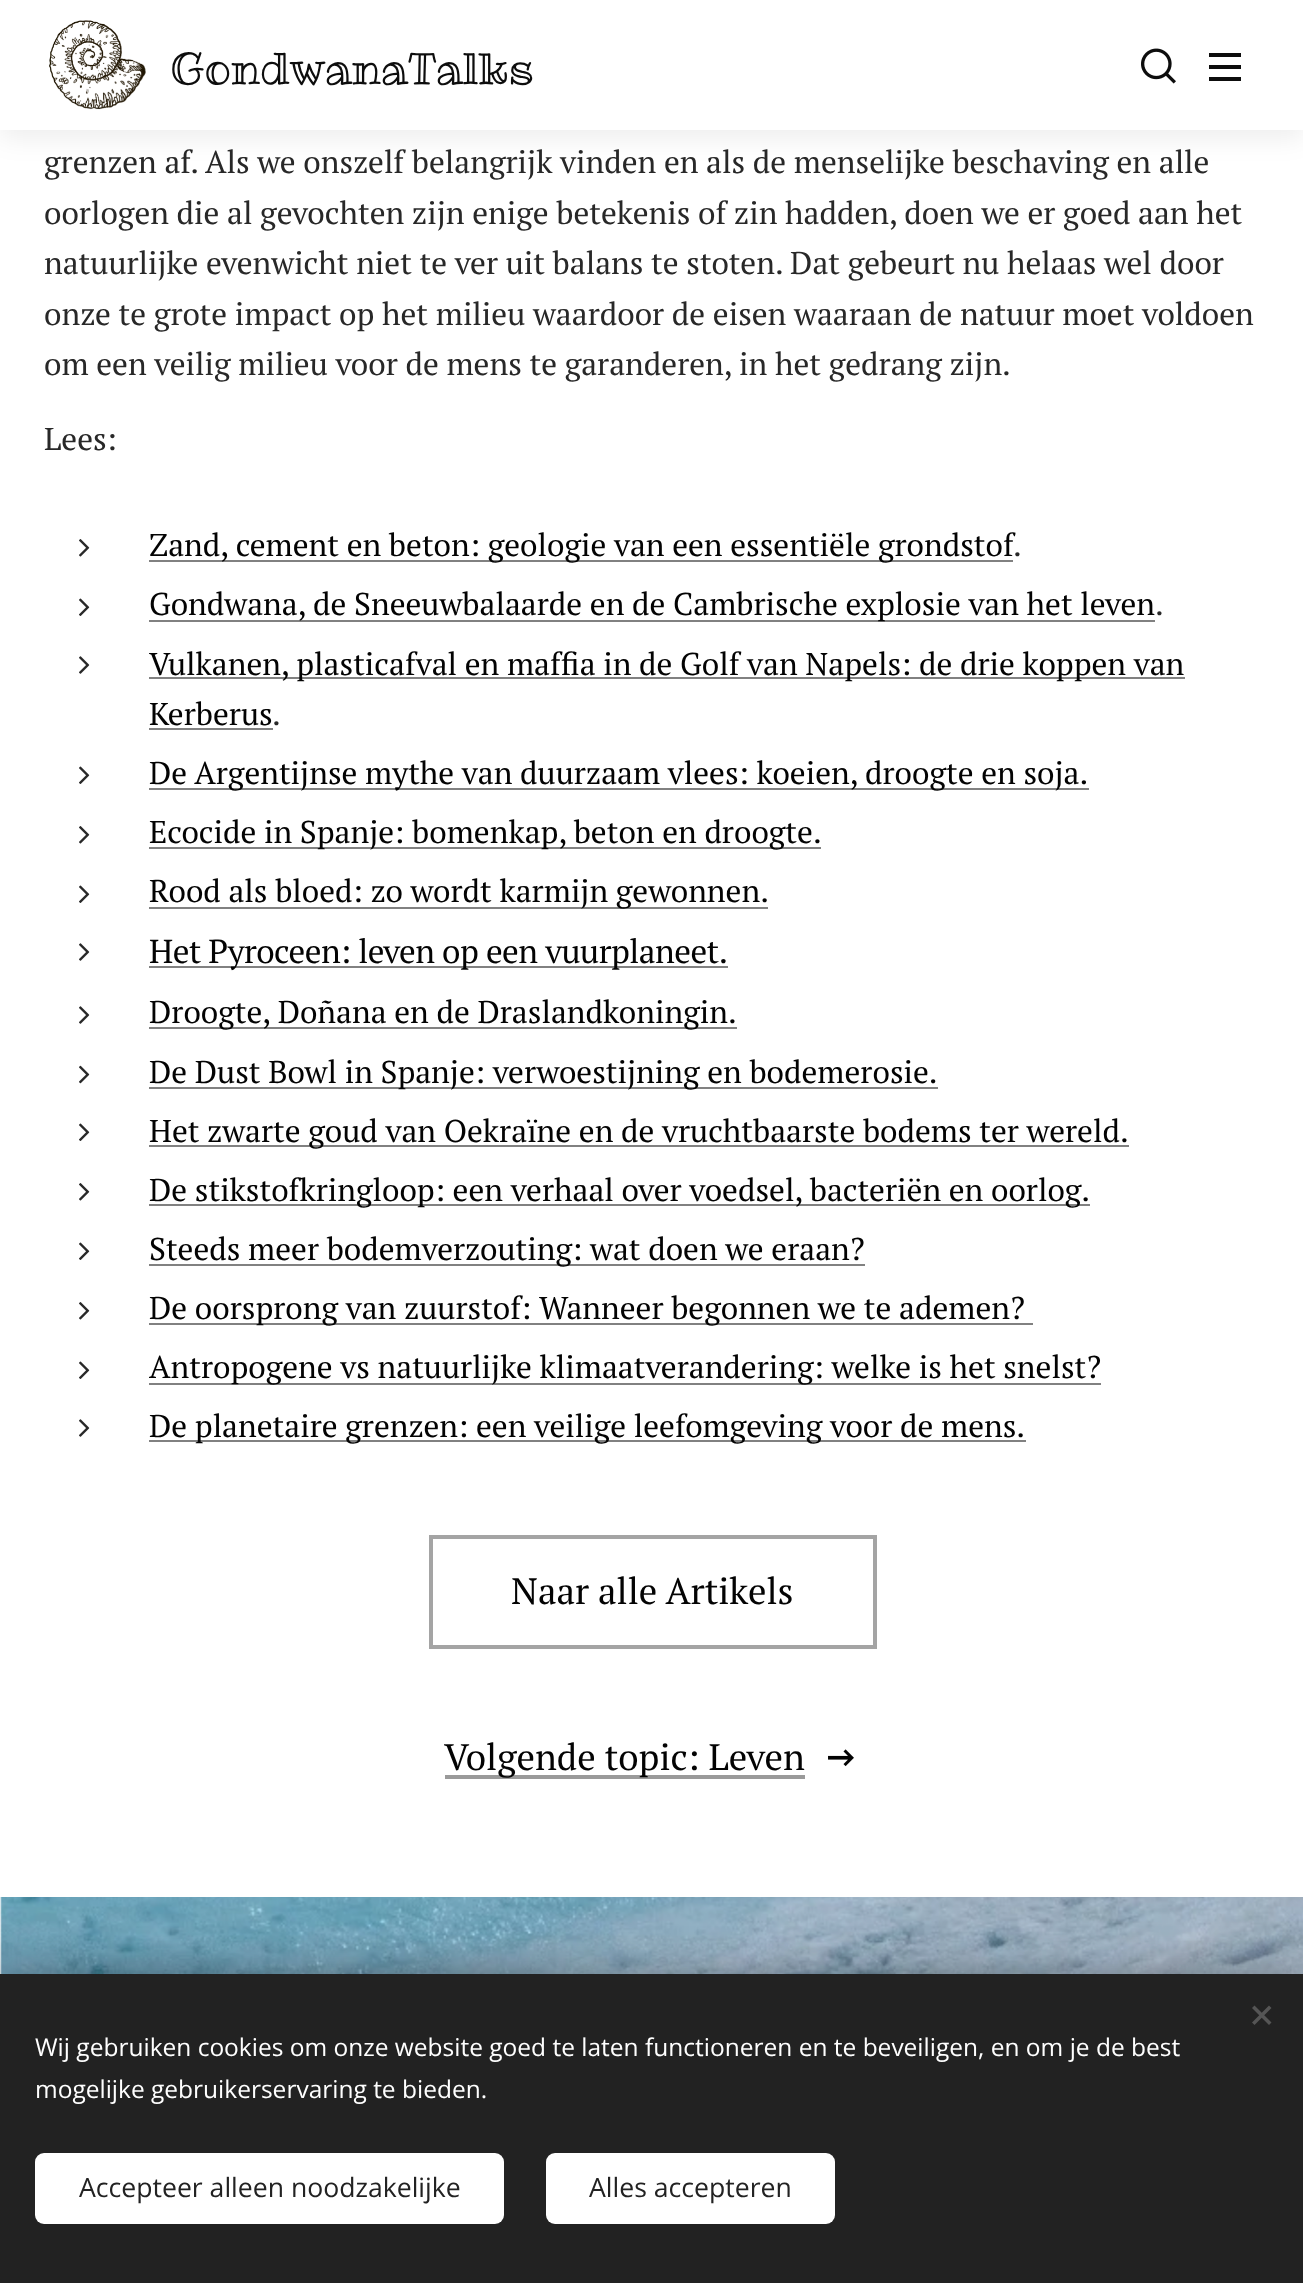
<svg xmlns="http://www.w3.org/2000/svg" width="1303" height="2283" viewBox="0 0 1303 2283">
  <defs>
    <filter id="blur1" x="-50%" y="-200%" width="200%" height="500%"><feGaussianBlur stdDeviation="13"/></filter>
    <filter id="blur2" x="-50%" y="-200%" width="200%" height="500%"><feGaussianBlur stdDeviation="22"/></filter>
  </defs>
  <rect width="100%" height="100%" fill="#ffffff"/>
  <rect x="0" y="9" width="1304" height="129" fill="#000000" fill-opacity="0.07" filter="url(#blur1)"/>
  <rect x="0" y="0" width="1303" height="130" fill="#ffffff"/>
  <image x="49" y="20" width="97" height="90" href="img1.png"/>
  <text x="170" y="84" font-family="Ribeye Marrow" font-size="44" fill="#0d0d0d">GondwanaTalks</text>
  <image x="1141" y="48" width="35" height="36" href="img2.png"/>
  <rect x="1209" y="65" width="32" height="4" fill="#0d0d0d"/>
  <rect x="1209" y="53" width="32" height="4" fill="#0d0d0d"/>
  <rect x="1209" y="77" width="32" height="4" fill="#0d0d0d"/>
  <text x="44" y="173" font-family="PT Serif" font-size="31.5" fill="#282828">grenzen af. Als we onszelf belangrijk vinden en als de menselijke beschaving en alle</text>
  <text x="44" y="224" font-family="PT Serif" font-size="31.5" fill="#282828">oorlogen die al gevochten zijn enige betekenis of zin hadden, doen we er goed aan het</text>
  <text x="44" y="274" font-family="PT Serif" font-size="31.5" fill="#282828">natuurlijke evenwicht niet te ver uit balans te stoten. Dat gebeurt nu helaas wel door</text>
  <text x="44" y="325" font-family="PT Serif" font-size="31.5" fill="#282828">onze te grote impact op het milieu waardoor de eisen waaraan de natuur moet voldoen</text>
  <text x="44" y="375" font-family="PT Serif" font-size="31.5" fill="#282828">om een veilig milieu voor de mens te garanderen, in het gedrang zijn.</text>
  <text x="44" y="450" font-family="PT Serif" font-size="31.5" fill="#282828">Lees:</text>
  <image x="79" y="539" width="11" height="18" href="img3.png"/>
  <rect x="149" y="560" width="864" height="2" fill="#818181"/>
  <text x="149" y="556" font-family="PT Serif" font-size="31.5" fill="#030303">Zand, cement en beton: geologie van een essentiële grondstof</text>
  <text x="1013" y="556" font-family="PT Serif" font-size="31.5" fill="#282828">.</text>
  <image x="79" y="598" width="11" height="18" href="img4.png"/>
  <rect x="149" y="620" width="1006" height="2" fill="#818181"/>
  <text x="149" y="615" font-family="PT Serif" font-size="31.5" fill="#030303">Gondwana, de Sneeuwbalaarde en de Cambrische explosie van het leven</text>
  <text x="1155" y="615" font-family="PT Serif" font-size="31.5" fill="#282828">.</text>
  <image x="79" y="656" width="11" height="18" href="img5.png"/>
  <rect x="149" y="677" width="1036" height="2" fill="#818181"/>
  <text x="149" y="675" font-family="PT Serif" font-size="31.5" fill="#030303">Vulkanen, plasticafval en maffia in de Golf van Napels: de drie koppen van</text>
  <text x="149" y="725" font-family="PT Serif" font-size="31.5" fill="#030303">Kerberus</text>
  <rect x="149" y="728" width="124" height="2" fill="#818181"/>
  <text x="272" y="725" font-family="PT Serif" font-size="31.5" fill="#282828">.</text>
  <image x="79" y="766" width="11" height="18" href="img4.png"/>
  <rect x="149" y="788" width="940" height="2" fill="#818181"/>
  <text x="149" y="784" font-family="PT Serif" font-size="31.5" fill="#030303">De Argentijnse mythe van duurzaam vlees: koeien, droogte en soja.</text>
  <image x="79" y="826" width="11" height="18" href="img3.png"/>
  <rect x="149" y="847" width="672" height="2" fill="#818181"/>
  <text x="149" y="843" font-family="PT Serif" font-size="31.5" fill="#030303">Ecocide in Spanje: bomenkap, beton en droogte.</text>
  <image x="79" y="885" width="11" height="18" href="img4.png"/>
  <rect x="149" y="907" width="619" height="2" fill="#818181"/>
  <text x="149" y="902" font-family="PT Serif" font-size="31.5" fill="#030303">Rood als bloed: zo wordt karmijn gewonnen.</text>
  <image x="79" y="943" width="11" height="18" href="img5.png"/>
  <rect x="149" y="966" width="579" height="2" fill="#818181"/>
  <text x="149" y="963" font-family="PT Serif" font-size="33.25" letter-spacing="-0.5" fill="#030303">Het Pyroceen: leven op een vuurplaneet.</text>
  <image x="79" y="1006" width="11" height="18" href="img5.png"/>
  <rect x="149" y="1027" width="588" height="2" fill="#818181"/>
  <text x="149" y="1023" font-family="PT Serif" font-size="31.5" fill="#030303">Droogte, Doñana en de Draslandkoningin.</text>
  <image x="79" y="1065" width="11" height="19" href="img6.png"/>
  <rect x="149" y="1087" width="789" height="2" fill="#818181"/>
  <text x="149" y="1083" font-family="PT Serif" font-size="31.5" fill="#030303">De Dust Bowl in Spanje: verwoestijning en bodemerosie.</text>
  <image x="79" y="1123" width="11" height="18" href="img4.png"/>
  <rect x="149" y="1145" width="980" height="2" fill="#818181"/>
  <text x="149" y="1142" font-family="PT Serif" font-size="31.5" fill="#030303">Het zwarte goud van Oekraïne en de vruchtbaarste bodems ter wereld.</text>
  <image x="79" y="1183" width="11" height="18" href="img3.png"/>
  <rect x="149" y="1204" width="941" height="2" fill="#818181"/>
  <text x="149" y="1201" font-family="PT Serif" font-size="31.5" fill="#030303">De stikstofkringloop: een verhaal over voedsel, bacteriën en oorlog.</text>
  <image x="79" y="1242" width="11" height="18" href="img4.png"/>
  <rect x="149" y="1264" width="716" height="2" fill="#818181"/>
  <text x="149" y="1260" font-family="PT Serif" font-size="31.5" fill="#030303">Steeds meer bodemverzouting: wat doen we eraan?</text>
  <image x="79" y="1302" width="11" height="18" href="img3.png"/>
  <rect x="149" y="1323" width="884" height="2" fill="#818181"/>
  <text x="149" y="1319" font-family="PT Serif" font-size="31.5" fill="#030303">De oorsprong van zuurstof: Wanneer begonnen we te ademen?</text>
  <image x="79" y="1361" width="11" height="18" href="img4.png"/>
  <rect x="149" y="1383" width="952" height="2" fill="#818181"/>
  <text x="149" y="1378" font-family="PT Serif" font-size="31.5" fill="#030303">Antropogene vs natuurlijke klimaatverandering: welke is het snelst?</text>
  <image x="79" y="1419" width="11" height="18" href="img5.png"/>
  <rect x="149" y="1440" width="877" height="2" fill="#818181"/>
  <text x="149" y="1437" font-family="PT Serif" font-size="31.5" fill="#030303">De planetaire grenzen: een veilige leefomgeving voor de mens.</text>
  <rect x="431" y="1537" width="444" height="110" fill="none" stroke="#a4a4a4" stroke-width="4"/>
  <text x="511" y="1604" font-family="PT Serif" font-size="36.75" fill="#030303">Naar alle Artikels</text>
  <rect x="445" y="1775" width="360" height="4" fill="#9a9a9a"/>
  <text x="444" y="1770" font-family="PT Serif" font-size="36.75" fill="#030303">Volgende topic: Leven</text>
  <image x="828" y="1749" width="26" height="18" href="img7.png"/>
  <image x="0" y="1897" width="1303" height="77" href="img8.png"/>
  <rect x="0" y="1974" width="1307" height="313" fill="#000000" fill-opacity="0.33" filter="url(#blur2)"/>
  <rect x="0" y="1974" width="1303" height="309" fill="#222222"/>
  <path d="M1252 2022.5L1269 2005.5L1271.5 2008L1254.5 2025Z" fill="#555555"/>
  <path d="M1254.5 2005.5L1271.5 2022.5L1269 2025L1252 2008Z" fill="#555555"/>
  <text x="35" y="2056" font-family="Open Sans" font-size="24.5" fill="#ffffff">Wij gebruiken cookies om onze website goed te laten functioneren en te beveiligen, en om je de best</text>
  <text x="35" y="2098" font-family="Open Sans" font-size="24.5" fill="#ffffff">mogelijke gebruikerservaring te bieden.</text>
  <rect x="35" y="2153" width="469" height="71" rx="9" fill="#ffffff"/>
  <text x="79" y="2197" font-family="Open Sans" font-size="26.6" fill="#222222">Accepteer alleen noodzakelijke</text>
  <rect x="546" y="2153" width="289" height="71" rx="9" fill="#ffffff"/>
  <text x="589" y="2197" font-family="Open Sans" font-size="26.6" fill="#222222">Alles accepteren</text>
</svg>
